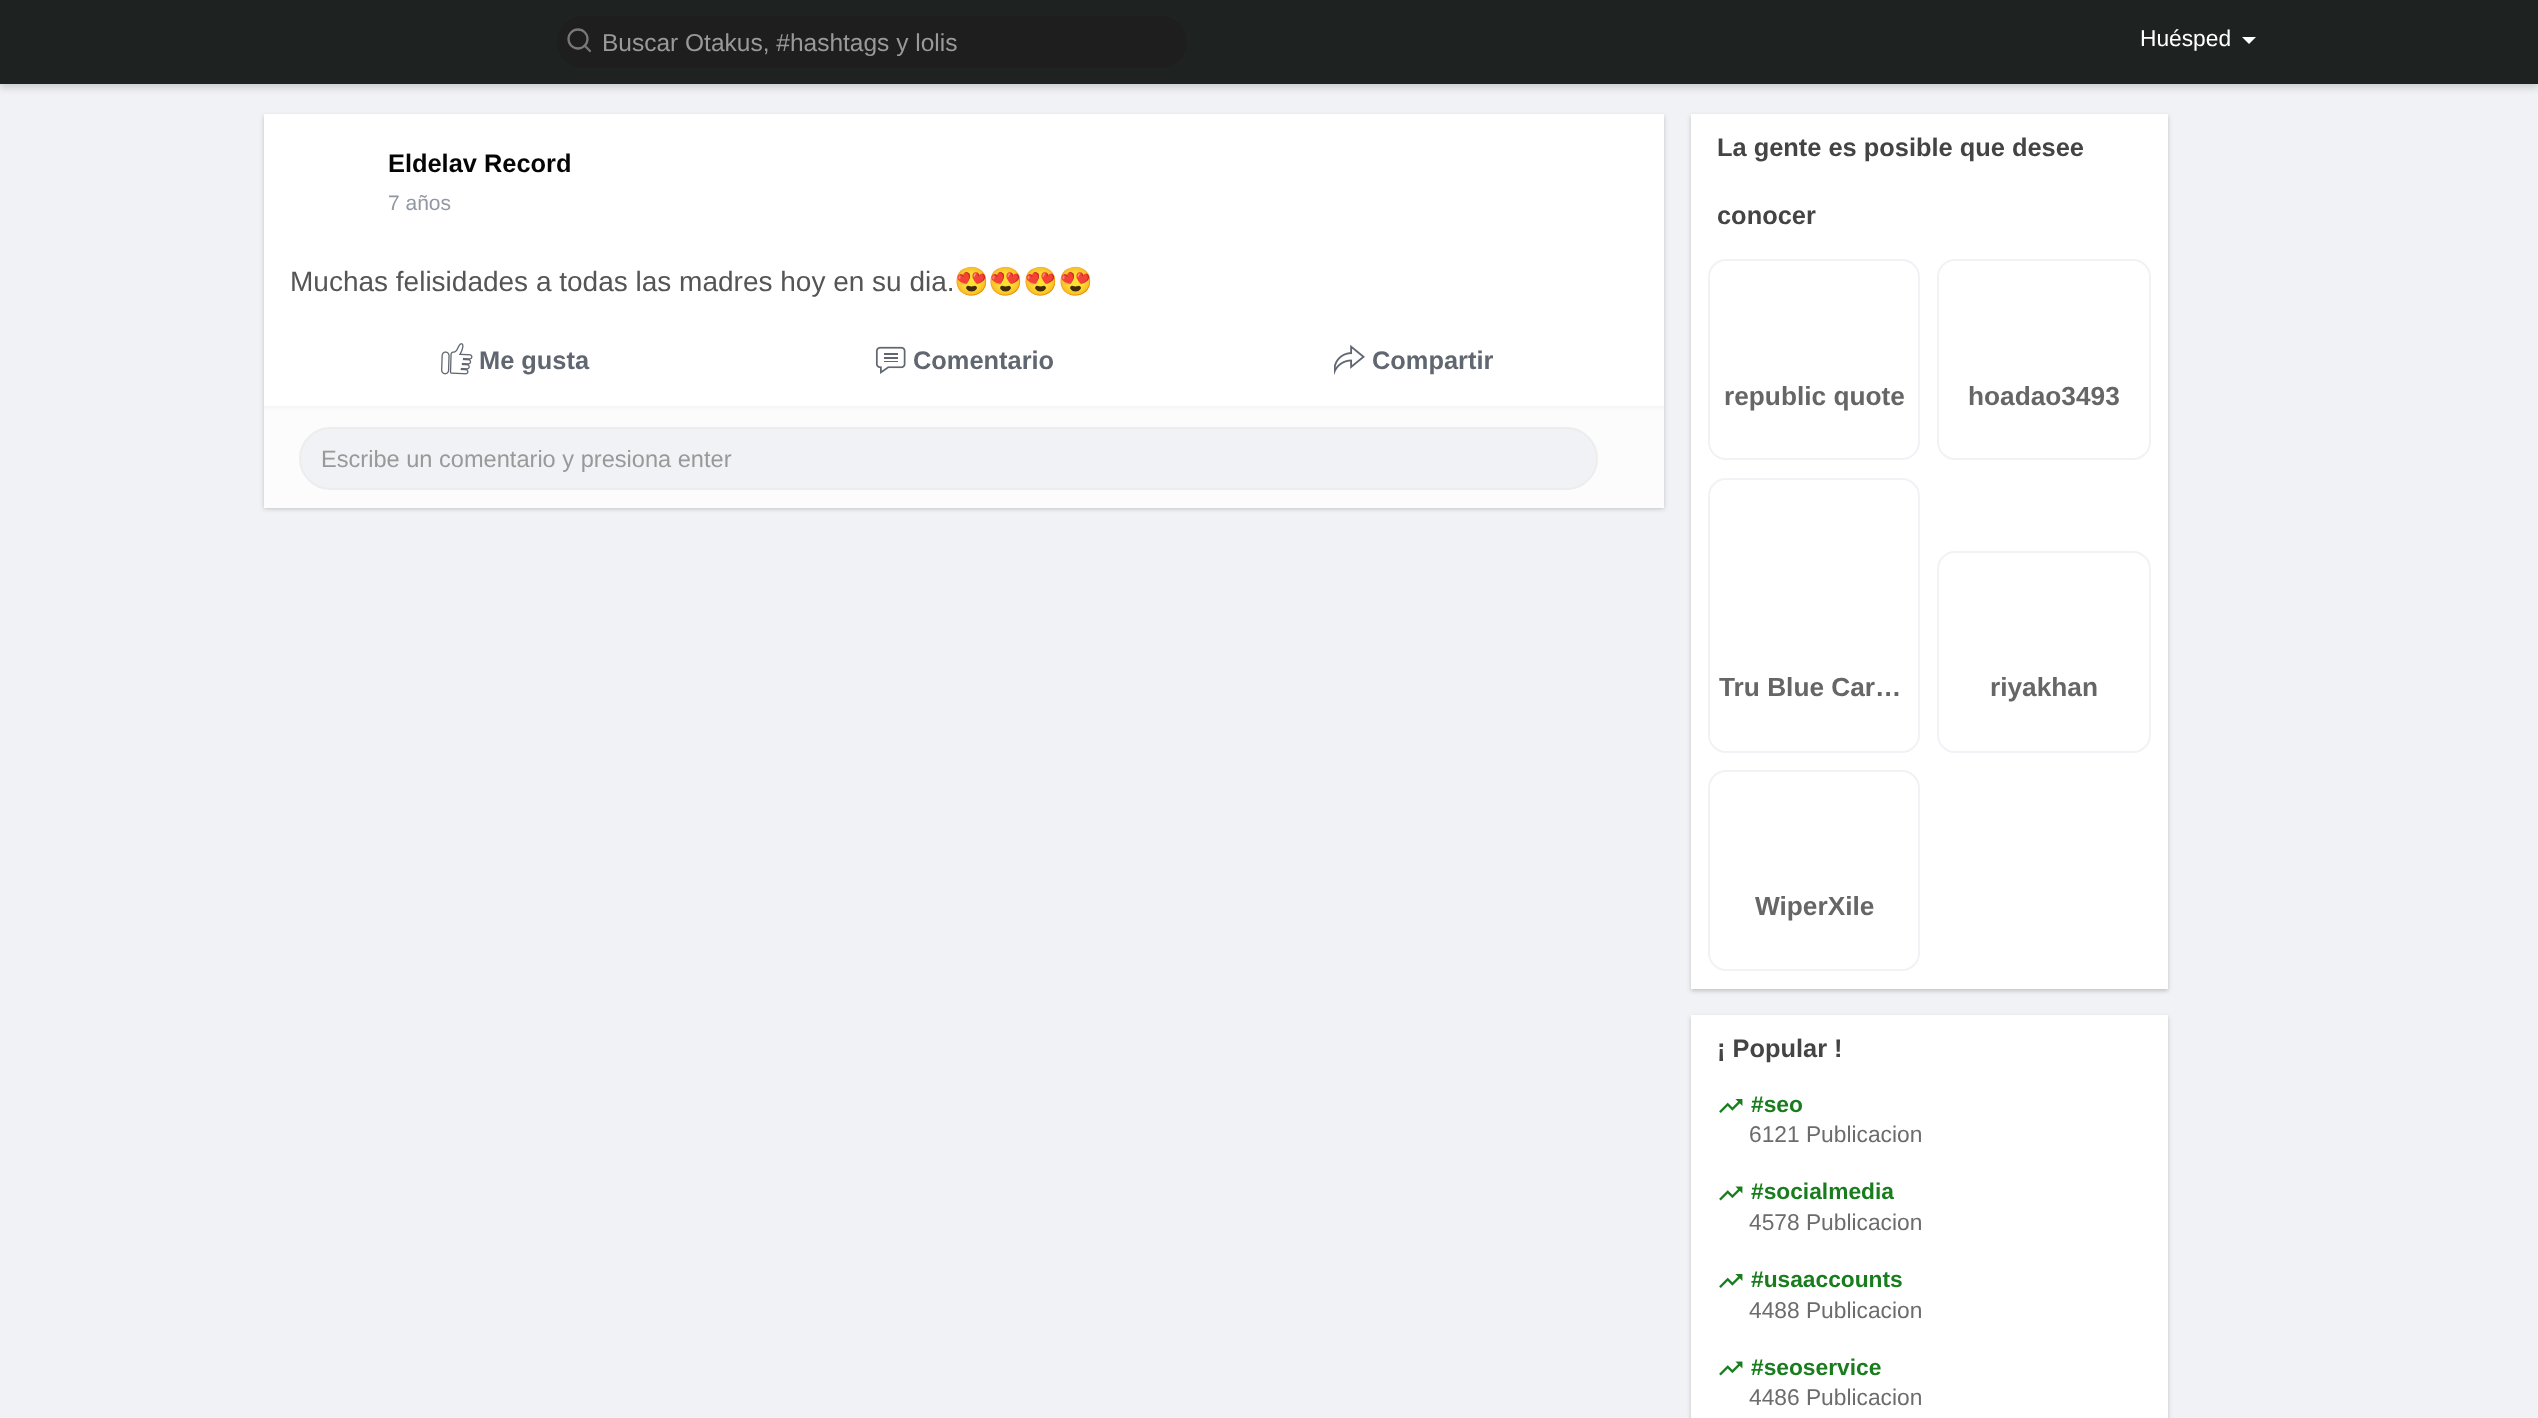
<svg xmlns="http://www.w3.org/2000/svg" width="2538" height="1418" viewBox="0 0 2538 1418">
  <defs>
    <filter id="blur1" x="-50%" y="-200%" width="200%" height="500%"><feGaussianBlur stdDeviation="3.5"/></filter>
    <filter id="blur2" x="-50%" y="-200%" width="200%" height="500%"><feGaussianBlur stdDeviation="2"/></filter>
  </defs>
  <rect width="100%" height="100%" fill="#f0f2f5"/>
  <rect x="0" y="4" width="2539" height="84" fill="#000000" fill-opacity="0.15" filter="url(#blur1)"/>
  <rect x="0" y="0" width="2538" height="84" fill="#1e2321"/>
  <rect x="557" y="16" width="630" height="52" rx="26" fill="#1e1e1f"/>
  <circle cx="578" cy="39" r="9.5" fill="none" stroke="#787878" stroke-width="2.3"/>
  <path d="M590 51L584.5 45.5" fill="none" stroke="#787878" stroke-width="2.3" stroke-linecap="round" stroke-linejoin="round"/>
  <text x="602" y="51" font-family="Liberation Sans" font-size="24.5" fill="#999999">Buscar Otakus, #hashtags y lolis</text>
  <text x="2140" y="46" font-family="Liberation Sans" font-size="22.75" fill="#ffffff">Huésped</text>
  <path d="M2242 37H2256L2249 44Z" fill="#ffffff"/>
  <rect x="264" y="116" width="1400" height="393" fill="#000000" fill-opacity="0.2" filter="url(#blur2)"/>
  <rect x="264" y="114" width="1400" height="292" fill="#ffffff"/>
  <text x="388" y="172" font-family="Liberation Sans" font-size="25.4" font-weight="bold" fill="#050505">Eldelav Record</text>
  <text x="388" y="210" font-family="Liberation Sans" font-size="21" fill="#9197a3">7 años</text>
  <text x="290" y="291" font-family="Liberation Sans" font-size="28" fill="#555555">Muchas felisidades a todas las madres hoy en su dia.</text>
  <text x="954" y="291" font-family="Noto Color Emoji" font-size="28" fill="#555555">😍😍😍😍</text>
  <image x="441" y="343" width="32" height="32" href="img1.png"/>
  <text x="479" y="369" font-family="Liberation Sans" font-size="25.4" font-weight="bold" fill="#616770">Me gusta</text>
  <image x="875" y="346" width="31" height="28" href="img2.png"/>
  <text x="913" y="369" font-family="Liberation Sans" font-size="25.4" font-weight="bold" fill="#616770">Comentario</text>
  <image x="1334" y="345" width="31" height="30" href="img3.png"/>
  <text x="1372" y="369" font-family="Liberation Sans" font-size="25.4" font-weight="bold" fill="#616770">Compartir</text>
  <rect x="264" y="410" width="1400" height="98" fill="#fcfcfc"/>
  <rect x="264" y="406" width="1400" height="2" fill="#f6f6f6"/>
  <rect x="264" y="408" width="1400" height="2" fill="#f9f9f9"/>
  <rect x="300" y="428" width="1297" height="61" rx="30.5" fill="#f0f2f5" stroke="#ededed" stroke-width="2"/>
  <text x="321" y="467" font-family="Liberation Sans" font-size="23.6" fill="#999999">Escribe un comentario y presiona enter</text>
  <rect x="1691" y="116" width="477" height="875" fill="#000000" fill-opacity="0.2" filter="url(#blur2)"/>
  <rect x="1691" y="114" width="477" height="875" fill="#ffffff"/>
  <text x="1717" y="156" font-family="Liberation Sans" font-size="25.4" font-weight="bold" fill="#444444">La gente es posible que desee</text>
  <text x="1717" y="224" font-family="Liberation Sans" font-size="25.4" font-weight="bold" fill="#444444">conocer</text>
  <rect x="1709" y="260" width="210" height="199" rx="17" fill="none" stroke="#f0f2f5" stroke-width="2"/>
  <text x="1724" y="405" font-family="Liberation Sans" font-size="26.25" font-weight="bold" fill="#666666">republic quote</text>
  <rect x="1938" y="260" width="212" height="199" rx="17" fill="none" stroke="#f0f2f5" stroke-width="2"/>
  <text x="1968" y="405" font-family="Liberation Sans" font-size="26.25" font-weight="bold" fill="#666666">hoadao3493</text>
  <rect x="1709" y="479" width="210" height="273" rx="17" fill="none" stroke="#f0f2f5" stroke-width="2"/>
  <text x="1719" y="696" font-family="Liberation Sans" font-size="26.25" font-weight="bold" fill="#666666">Tru Blue Car…</text>
  <rect x="1938" y="552" width="212" height="200" rx="17" fill="none" stroke="#f0f2f5" stroke-width="2"/>
  <text x="1990" y="696" font-family="Liberation Sans" font-size="26.25" font-weight="bold" fill="#666666">riyakhan</text>
  <rect x="1709" y="771" width="210" height="199" rx="17" fill="none" stroke="#f0f2f5" stroke-width="2"/>
  <text x="1755" y="915" font-family="Liberation Sans" font-size="26.25" font-weight="bold" fill="#666666">WiperXile</text>
  <rect x="1691" y="1017" width="477" height="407" fill="#000000" fill-opacity="0.2" filter="url(#blur2)"/>
  <rect x="1691" y="1015" width="477" height="403" fill="#ffffff"/>
  <text x="1717" y="1057" font-family="Liberation Sans" font-size="25.4" font-weight="bold" fill="#444444">¡ Popular !</text>
  <image x="1719" y="1099" width="24" height="14" href="img4.png"/>
  <text x="1751" y="1112" font-family="Liberation Sans" font-size="22.75" font-weight="bold" fill="#197d1e">#seo</text>
  <text x="1749" y="1142" font-family="Liberation Sans" font-size="22.75" fill="#6c6c6c">6121 Publicacion</text>
  <image x="1719" y="1186" width="24" height="15" href="img5.png"/>
  <text x="1751" y="1199" font-family="Liberation Sans" font-size="22.75" font-weight="bold" fill="#197d1e">#socialmedia</text>
  <text x="1749" y="1230" font-family="Liberation Sans" font-size="22.75" fill="#6c6c6c">4578 Publicacion</text>
  <image x="1719" y="1274" width="24" height="14" href="img4.png"/>
  <text x="1751" y="1287" font-family="Liberation Sans" font-size="22.75" font-weight="bold" fill="#197d1e">#usaaccounts</text>
  <text x="1749" y="1318" font-family="Liberation Sans" font-size="22.75" fill="#6c6c6c">4488 Publicacion</text>
  <image x="1719" y="1361" width="24" height="15" href="img5.png"/>
  <text x="1751" y="1375" font-family="Liberation Sans" font-size="22.75" font-weight="bold" fill="#197d1e">#seoservice</text>
  <text x="1749" y="1405" font-family="Liberation Sans" font-size="22.75" fill="#6c6c6c">4486 Publicacion</text>
</svg>
